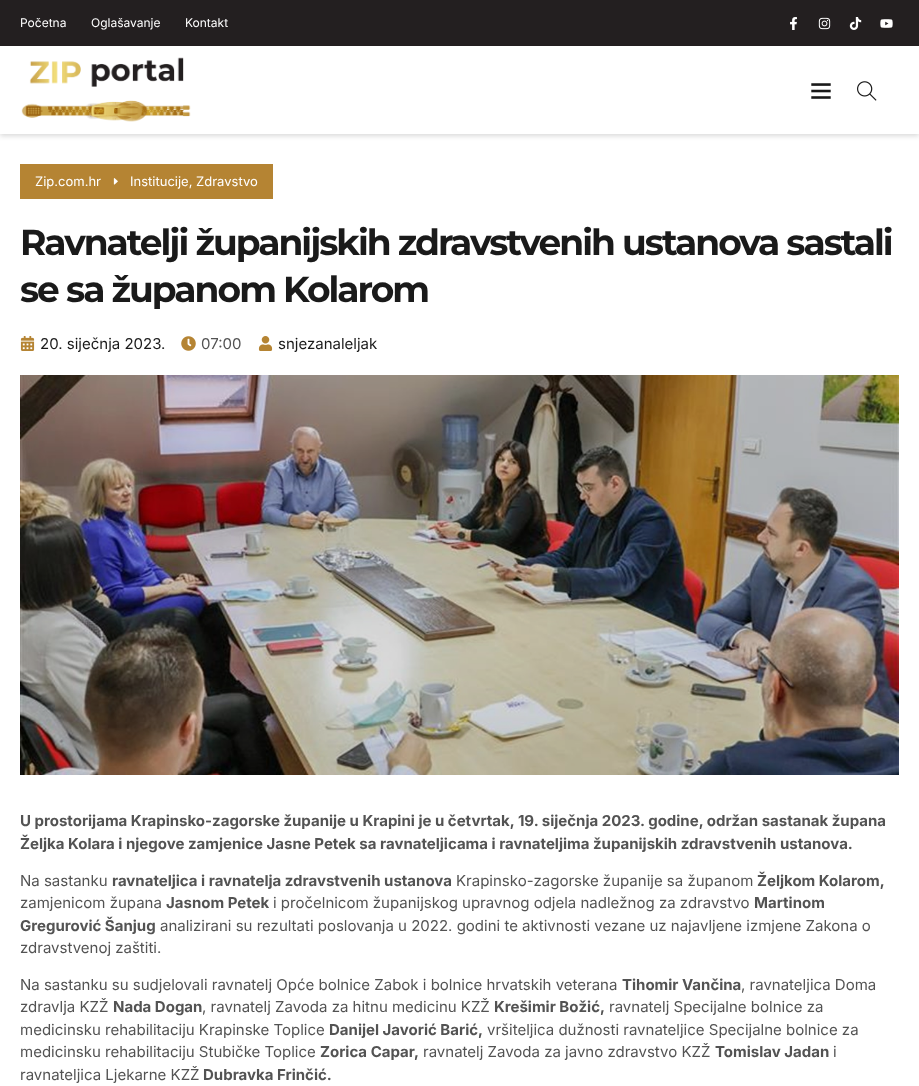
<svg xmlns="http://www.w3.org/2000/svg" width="919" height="1086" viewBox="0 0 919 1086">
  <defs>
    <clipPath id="clip1"><path d="M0 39H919V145H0ZM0 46H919V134H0Z" clip-rule="evenodd"/></clipPath>
    <filter id="blur1" x="-50%" y="-200%" width="200%" height="500%"><feGaussianBlur stdDeviation="2.5"/></filter>
  </defs>
  <rect width="100%" height="100%" fill="#ffffff"/>
  <rect x="0" y="0" width="919" height="46" fill="#231f20"/>
  <text x="20" y="27" font-family="Inter" font-size="12" fill="#ffffff">Početna</text>
  <text x="91" y="27" font-family="Inter" font-size="12" fill="#ffffff">Oglašavanje</text>
  <text x="185" y="27" font-family="Inter" font-size="12" fill="#ffffff">Kontakt</text>
  <image x="790" y="17" width="7" height="13" href="img1.png"/>
  <image x="818" y="17" width="13" height="13" href="img2.png"/>
  <image x="849" y="17" width="13" height="13" href="img3.png"/>
  <image x="880" y="19" width="13" height="9" href="img4.png"/>
  <g clip-path="url(#clip1)">
    <rect x="0" y="48" width="919" height="88" fill="#000000" fill-opacity="0.15" filter="url(#blur1)"/>
  </g>
  <image x="21" y="57" width="170" height="65" href="img5.png"/>
  <image x="811" y="83" width="20" height="16" href="img6.png"/>
  <image x="857" y="81" width="20" height="20" href="img7.png"/>
  <rect x="20" y="164" width="253" height="35" fill="#b58433"/>
  <text x="35" y="186" font-family="Inter" font-size="13" fill="#ffffff">Zip.com.hr</text>
  <image x="113" y="178" width="5" height="7" href="img8.png"/>
  <text x="130" y="186" font-family="Inter" font-size="13" fill="#ffffff">Institucije, Zdravstvo</text>
  <text x="20" y="255" font-family="Montserrat" font-size="36" font-weight="bold" letter-spacing="-2" fill="#1a1a1a">Ravnatelji županijskih zdravstvenih ustanova sastali</text>
  <text x="20" y="302" font-family="Montserrat" font-size="36" font-weight="bold" letter-spacing="-2" fill="#1a1a1a">se sa županom Kolarom</text>
  <image x="20" y="336" width="15" height="15" href="img9.png"/>
  <text x="40" y="349" font-family="Inter" font-size="15" fill="#1a1a1a">20. siječnja 2023.</text>
  <image x="181" y="336" width="15" height="15" href="img10.png"/>
  <text x="201" y="349" font-family="Inter" font-size="15" fill="#535353">07:00</text>
  <image x="258" y="336" width="15" height="15" href="img11.png"/>
  <text x="278" y="349" font-family="Inter" font-size="15" fill="#1a1a1a">snjezanaleljak</text>
  <image x="20" y="375" width="879" height="400" href="img12.png"/>
  <text x="20" y="826" font-family="Inter" font-size="15" font-weight="bold" fill="#535353">U prostorijama Krapinsko-zagorske županije u Krapini je u četvrtak, 19. siječnja 2023. godine, održan sastanak župana</text>
  <text x="20" y="849" font-family="Inter" font-size="15" font-weight="bold" fill="#535353">Željka Kolara i njegove zamjenice Jasne Petek sa ravnateljicama i ravnateljima županijskih zdravstvenih ustanova.</text>
  <text x="20" y="886" font-family="Inter" font-size="15" fill="#535353">Na sastanku</text>
  <text x="112" y="886" font-family="Inter" font-size="15" font-weight="bold" fill="#535353">ravnateljica i ravnatelja zdravstvenih ustanova</text>
  <text x="456" y="886" font-family="Inter" font-size="15" fill="#535353">Krapinsko-zagorske županije sa županom</text>
  <text x="757" y="886" font-family="Inter" font-size="15" font-weight="bold" fill="#535353">Željkom Kolarom,</text>
  <text x="20" y="908" font-family="Inter" font-size="15" fill="#535353">zamjenicom župana</text>
  <text x="166" y="908" font-family="Inter" font-size="15" font-weight="bold" fill="#535353">Jasnom Petek</text>
  <text x="273" y="908" font-family="Inter" font-size="15" fill="#535353">i pročelnicom županijskog upravnog odjela nadležnog za zdravstvo</text>
  <text x="754" y="908" font-family="Inter" font-size="15" font-weight="bold" fill="#535353">Martinom</text>
  <text x="20" y="931" font-family="Inter" font-size="15" font-weight="bold" fill="#535353">Gregurović Šanjug</text>
  <text x="160" y="931" font-family="Inter" font-size="15" fill="#535353">analizirani su rezultati poslovanja u 2022. godini te aktivnosti vezane uz najavljene izmjene Zakona o</text>
  <text x="20" y="953" font-family="Inter" font-size="15" fill="#535353">zdravstvenoj zaštiti.</text>
  <text x="20" y="990" font-family="Inter" font-size="15" fill="#535353">Na sastanku su sudjelovali ravnatelj Opće bolnice Zabok i bolnice hrvatskih veterana</text>
  <text x="622" y="990" font-family="Inter" font-size="15" font-weight="bold" fill="#535353">Tihomir Vančina</text>
  <text x="741" y="990" font-family="Inter" font-size="15" fill="#535353">, ravnateljica Doma</text>
  <text x="20" y="1012" font-family="Inter" font-size="15" fill="#535353">zdravlja KZŽ</text>
  <text x="113" y="1012" font-family="Inter" font-size="15" font-weight="bold" fill="#535353">Nada Dogan</text>
  <text x="202" y="1012" font-family="Inter" font-size="15" fill="#535353">, ravnatelj Zavoda za hitnu medicinu KZŽ</text>
  <text x="494" y="1012" font-family="Inter" font-size="15" font-weight="bold" fill="#535353">Krešimir Božić,</text>
  <text x="609" y="1012" font-family="Inter" font-size="15" fill="#535353">ravnatelj Specijalne bolnice za</text>
  <text x="20" y="1035" font-family="Inter" font-size="15" fill="#535353">medicinsku rehabilitaciju Krapinske Toplice</text>
  <text x="329" y="1035" font-family="Inter" font-size="15" font-weight="bold" fill="#535353">Danijel Javorić Barić,</text>
  <text x="487" y="1035" font-family="Inter" font-size="15" fill="#535353">vršiteljica dužnosti ravnateljice Specijalne bolnice za</text>
  <text x="20" y="1057" font-family="Inter" font-size="15" fill="#535353">medicinsku rehabilitaciju Stubičke Toplice</text>
  <text x="320" y="1057" font-family="Inter" font-size="15" font-weight="bold" fill="#535353">Zorica Capar,</text>
  <text x="423" y="1057" font-family="Inter" font-size="15" fill="#535353">ravnatelj Zavoda za javno zdravstvo KZŽ</text>
  <text x="715" y="1057" font-family="Inter" font-size="15" font-weight="bold" fill="#535353">Tomislav Jadan</text>
  <text x="833" y="1057" font-family="Inter" font-size="15" fill="#535353">i</text>
  <text x="20" y="1080" font-family="Inter" font-size="15" fill="#535353">ravnateljica Ljekarne KZŽ</text>
  <text x="203" y="1080" font-family="Inter" font-size="15" font-weight="bold" fill="#535353">Dubravka Frinčić.</text>
</svg>
